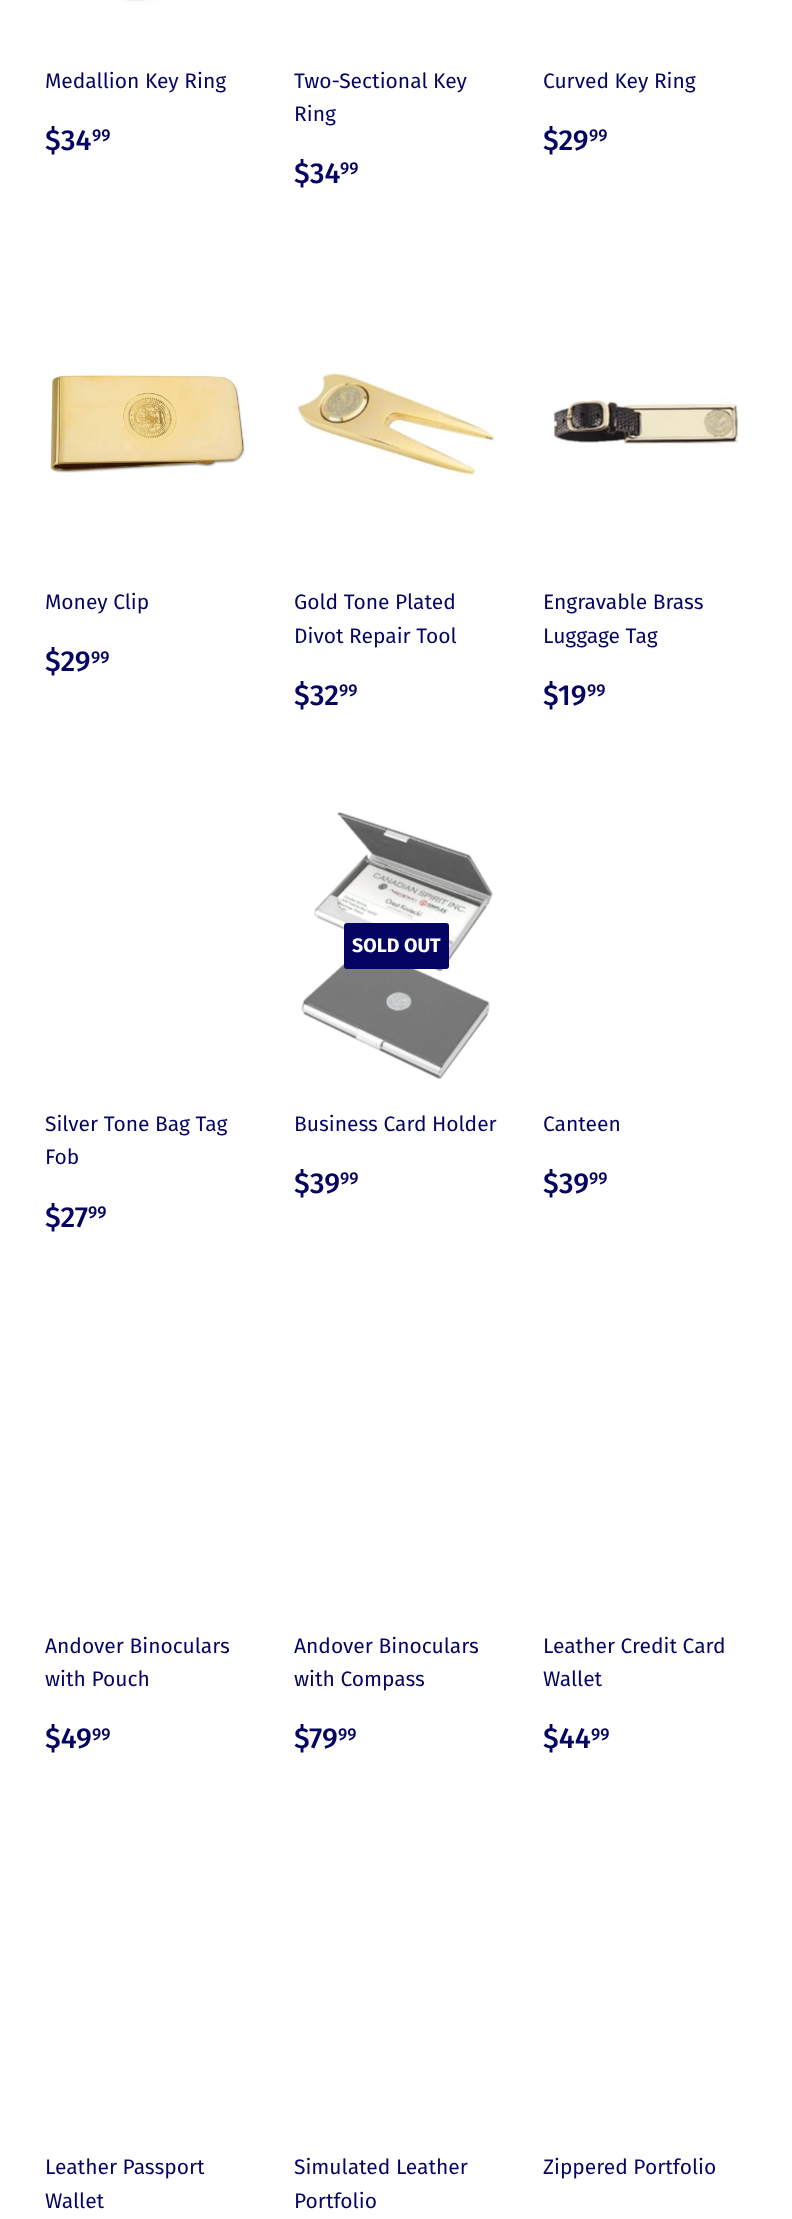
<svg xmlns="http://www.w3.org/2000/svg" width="792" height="2219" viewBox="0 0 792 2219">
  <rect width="100%" height="100%" fill="#ffffff"/>
  <image x="121" y="0" width="36" height="5" href="img1.png"/>
  <text x="45" y="88" font-family="Fira Sans" font-size="21" fill="#050462">Medallion Key Ring</text>
  <text x="45" y="150" font-family="Fira Sans" font-size="29" font-weight="500" fill="#050462">$34</text>
  <text x="92" y="141" font-family="Fira Sans" font-size="17" font-weight="500" fill="#050462">99</text>
  <text x="294" y="88" font-family="Fira Sans" font-size="21" fill="#050462">Two-Sectional Key</text>
  <text x="294" y="121" font-family="Fira Sans" font-size="21" fill="#050462">Ring</text>
  <text x="294" y="183" font-family="Fira Sans" font-size="29" font-weight="500" fill="#050462">$34</text>
  <text x="340" y="174" font-family="Fira Sans" font-size="17" font-weight="500" fill="#050462">99</text>
  <text x="543" y="88" font-family="Fira Sans" font-size="21" fill="#050462">Curved Key Ring</text>
  <text x="543" y="150" font-family="Fira Sans" font-size="29" font-weight="500" fill="#050462">$29</text>
  <text x="589" y="141" font-family="Fira Sans" font-size="17" font-weight="500" fill="#050462">99</text>
  <image x="49" y="374" width="196" height="99" href="img2.png"/>
  <text x="45" y="609" font-family="Fira Sans" font-size="21" fill="#050462">Money Clip</text>
  <text x="45" y="671" font-family="Fira Sans" font-size="29" font-weight="500" fill="#050462">$29</text>
  <text x="91" y="663" font-family="Fira Sans" font-size="17" font-weight="500" fill="#050462">99</text>
  <image x="297" y="373" width="199" height="103" href="img3.png"/>
  <text x="294" y="609" font-family="Fira Sans" font-size="21" fill="#050462">Gold Tone Plated</text>
  <text x="294" y="643" font-family="Fira Sans" font-size="21" fill="#050462">Divot Repair Tool</text>
  <text x="294" y="705" font-family="Fira Sans" font-size="29" font-weight="500" fill="#050462">$32</text>
  <text x="339" y="696" font-family="Fira Sans" font-size="17" font-weight="500" fill="#050462">99</text>
  <image x="552" y="397" width="187" height="48" href="img4.png"/>
  <text x="543" y="609" font-family="Fira Sans" font-size="21" fill="#050462">Engravable Brass</text>
  <text x="543" y="643" font-family="Fira Sans" font-size="21" fill="#050462">Luggage Tag</text>
  <text x="543" y="705" font-family="Fira Sans" font-size="29" font-weight="500" fill="#050462">$19</text>
  <text x="587" y="696" font-family="Fira Sans" font-size="17" font-weight="500" fill="#050462">99</text>
  <text x="45" y="1131" font-family="Fira Sans" font-size="21" fill="#050462">Silver Tone Bag Tag</text>
  <text x="45" y="1164" font-family="Fira Sans" font-size="21" fill="#050462">Fob</text>
  <text x="45" y="1227" font-family="Fira Sans" font-size="29" font-weight="500" fill="#050462">$27</text>
  <text x="88" y="1218" font-family="Fira Sans" font-size="17" font-weight="500" fill="#050462">99</text>
  <image x="301" y="812" width="192" height="267" href="img5.png"/>
  <rect x="344" y="923" width="105" height="46" rx="3" fill="#050462"/>
  <text x="352" y="952" font-family="Fira Sans" font-size="19.5" font-weight="bold" fill="#ffffff">SOLD OUT</text>
  <text x="294" y="1131" font-family="Fira Sans" font-size="21" fill="#050462">Business Card Holder</text>
  <text x="294" y="1193" font-family="Fira Sans" font-size="29" font-weight="500" fill="#050462">$39</text>
  <text x="340" y="1184" font-family="Fira Sans" font-size="17" font-weight="500" fill="#050462">99</text>
  <text x="543" y="1131" font-family="Fira Sans" font-size="21" fill="#050462">Canteen</text>
  <text x="543" y="1193" font-family="Fira Sans" font-size="29" font-weight="500" fill="#050462">$39</text>
  <text x="589" y="1184" font-family="Fira Sans" font-size="17" font-weight="500" fill="#050462">99</text>
  <text x="45" y="1653" font-family="Fira Sans" font-size="21" fill="#050462">Andover Binoculars</text>
  <text x="45" y="1686" font-family="Fira Sans" font-size="21" fill="#050462">with Pouch</text>
  <text x="45" y="1748" font-family="Fira Sans" font-size="29" font-weight="500" fill="#050462">$49</text>
  <text x="92" y="1740" font-family="Fira Sans" font-size="17" font-weight="500" fill="#050462">99</text>
  <text x="294" y="1653" font-family="Fira Sans" font-size="21" fill="#050462">Andover Binoculars</text>
  <text x="294" y="1686" font-family="Fira Sans" font-size="21" fill="#050462">with Compass</text>
  <text x="294" y="1748" font-family="Fira Sans" font-size="29" font-weight="500" fill="#050462">$79</text>
  <text x="338" y="1740" font-family="Fira Sans" font-size="17" font-weight="500" fill="#050462">99</text>
  <text x="543" y="1653" font-family="Fira Sans" font-size="21" fill="#050462">Leather Credit Card</text>
  <text x="543" y="1686" font-family="Fira Sans" font-size="21" fill="#050462">Wallet</text>
  <text x="543" y="1748" font-family="Fira Sans" font-size="29" font-weight="500" fill="#050462">$44</text>
  <text x="591" y="1740" font-family="Fira Sans" font-size="17" font-weight="500" fill="#050462">99</text>
  <text x="45" y="2174" font-family="Fira Sans" font-size="21" fill="#050462">Leather Passport</text>
  <text x="45" y="2208" font-family="Fira Sans" font-size="21" fill="#050462">Wallet</text>
  <text x="294" y="2174" font-family="Fira Sans" font-size="21" fill="#050462">Simulated Leather</text>
  <text x="294" y="2208" font-family="Fira Sans" font-size="21" fill="#050462">Portfolio</text>
  <text x="543" y="2174" font-family="Fira Sans" font-size="21" fill="#050462">Zippered Portfolio</text>
</svg>
